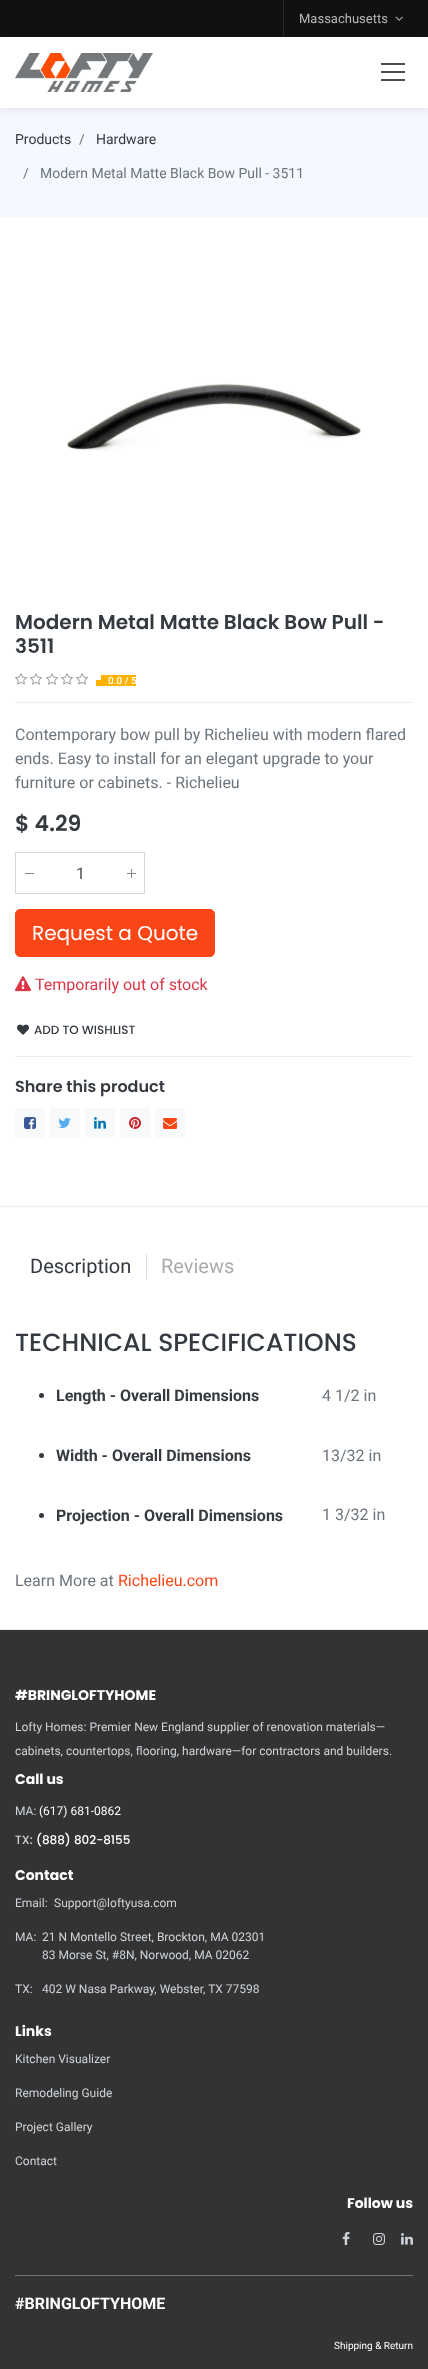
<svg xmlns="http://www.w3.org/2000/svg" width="428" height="2369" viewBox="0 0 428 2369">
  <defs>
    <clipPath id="clip1"><path d="M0 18H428V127H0ZM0 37H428V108H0Z" clip-rule="evenodd"/></clipPath>
    <filter id="blur1" x="-50%" y="-200%" width="200%" height="500%"><feGaussianBlur stdDeviation="6"/></filter>
  </defs>
  <rect width="100%" height="100%" fill="#ffffff"/>
  <rect x="0" y="0" width="428" height="37" fill="#111111"/>
  <rect x="283" y="0" width="1" height="37" fill="#292929"/>
  <text x="299" y="23" font-family="Roboto" font-size="13" fill="#b8b8b8">Massachusetts</text>
  <image x="395" y="16" width="8" height="5" href="img1.png"/>
  <rect x="0" y="108" width="428" height="109" fill="#f5f9ff"/>
  <g clip-path="url(#clip1)">
    <rect x="0" y="37" width="428" height="71" fill="#000000" fill-opacity="0.12" filter="url(#blur1)"/>
  </g>
  <image x="15" y="53" width="138" height="39" href="img2.png"/>
  <rect x="381" y="63" width="24" height="2" fill="#4d4d4d"/>
  <rect x="381" y="71" width="24" height="2" fill="#4d4d4d"/>
  <rect x="381" y="79" width="24" height="2" fill="#4d4d4d"/>
  <text x="15" y="144" font-family="Roboto" font-size="14" fill="#343a40">Products</text>
  <text x="79" y="144" font-family="Roboto" font-size="14" fill="#6c757d">/</text>
  <text x="96" y="144" font-family="Roboto" font-size="14" fill="#343a40">Hardware</text>
  <text x="23" y="178" font-family="Roboto" font-size="14" fill="#6c757d">/</text>
  <text x="40" y="178" font-family="Roboto" font-size="14" fill="#6c757d">Modern Metal Matte Black Bow Pull - 3511</text>
  <image x="67" y="383" width="294" height="68" href="img3.png"/>
  <text x="15" y="629" font-family="Poppins" font-size="20" font-weight="600" fill="#343a40">Modern Metal Matte Black Bow Pull -</text>
  <text x="15" y="653" font-family="Poppins" font-size="20" font-weight="600" fill="#343a40">3511</text>
  <rect x="15" y="702" width="398" height="1" fill="#eeeeee"/>
  <image x="15" y="673" width="12" height="12" href="img4.png"/>
  <image x="30" y="673" width="12" height="12" href="img4.png"/>
  <image x="46" y="673" width="12" height="12" href="img4.png"/>
  <image x="61" y="673" width="12" height="12" href="img4.png"/>
  <image x="76" y="673" width="12" height="12" href="img4.png"/>
  <rect x="101" y="675" width="35" height="11" fill="#ffb300"/>
  <text x="108" y="684" font-family="Roboto" font-size="10" font-weight="500" fill="#ffffff">0.0 / 5</text>
  <rect x="96" y="680" width="12" height="6" fill="#ffb300"/>
  <text x="15" y="740" font-family="Roboto" font-size="16" fill="#6c757d">Contemporary bow pull by Richelieu with modern flared</text>
  <text x="15" y="764" font-family="Roboto" font-size="16" fill="#6c757d">ends. Easy to install for an elegant upgrade to your</text>
  <text x="15" y="788" font-family="Roboto" font-size="16" fill="#6c757d">furniture or cabinets. - Richelieu</text>
  <text x="15" y="831" font-family="Poppins" font-size="22" font-weight="600" fill="#343a40">$ 4.29</text>
  <rect x="15.5" y="852.5" width="129" height="41" fill="none" stroke="#d7d7d7"/>
  <rect x="25" y="873" width="9" height="1" fill="#888888"/>
  <text x="76" y="879" font-family="Roboto" font-size="16" fill="#495057">1</text>
  <rect x="127" y="873" width="9" height="1" fill="#888888"/>
  <rect x="131" y="869" width="1" height="9" fill="#888888"/>
  <rect x="15.5" y="909.5" width="199" height="47" rx="4.5" fill="#fa4616" stroke="#fa4616"/>
  <text x="32" y="940" font-family="Poppins" font-size="20" fill="#ffffff">Request a Quote</text>
  <image x="15" y="976" width="16" height="16" href="img5.png"/>
  <text x="35" y="990" font-family="Roboto" font-size="16" fill="#dc3545">Temporarily out of stock</text>
  <rect x="15" y="1056" width="398" height="1" fill="#eeeeee"/>
  <image x="17" y="1024" width="12" height="11" href="img6.png"/>
  <text x="34" y="1034" font-family="Poppins" font-size="12" font-weight="500" fill="#343a40">ADD TO WISHLIST</text>
  <text x="15" y="1092" font-family="Poppins" font-size="16" font-weight="600" fill="#343a40">Share this product</text>
  <rect x="15" y="1108" width="30" height="30" rx="2" fill="#f8f9fa"/>
  <image x="24" y="1117" width="12" height="12" href="img7.png"/>
  <rect x="50" y="1108" width="30" height="30" rx="2" fill="#f8f9fa"/>
  <image x="58" y="1118" width="13" height="10" href="img8.png"/>
  <rect x="85" y="1108" width="30" height="30" rx="2" fill="#f8f9fa"/>
  <image x="94" y="1117" width="12" height="12" href="img9.png"/>
  <rect x="120" y="1108" width="30" height="30" rx="2" fill="#f8f9fa"/>
  <image x="129" y="1117" width="12" height="12" href="img10.png"/>
  <rect x="155" y="1108" width="30" height="30" rx="2" fill="#f8f9fa"/>
  <image x="163" y="1118" width="14" height="11" href="img11.png"/>
  <rect x="0" y="1206" width="428" height="1" fill="#eeeeee"/>
  <rect x="0" y="1629" width="428" height="1" fill="#eeeeee"/>
  <text x="30" y="1273" font-family="Roboto" font-size="20" fill="#343a40">Description</text>
  <rect x="146" y="1254" width="1" height="25" fill="#dddddd"/>
  <text x="161" y="1273" font-family="Roboto" font-size="20" fill="#ababab">Reviews</text>
  <text x="15" y="1351" font-family="Poppins" font-size="25" font-weight="500" fill="#343a40">TECHNICAL SPECIFICATIONS</text>
  <circle cx="41.5" cy="1395.5" r="2.5" fill="#343a40"/>
  <text x="56" y="1401" font-family="Roboto" font-size="16" font-weight="bold" fill="#343a40">Length - Overall Dimensions</text>
  <text x="322" y="1401" font-family="Roboto" font-size="16" fill="#6c757d">4 1/2 in</text>
  <circle cx="41.5" cy="1455.5" r="2.5" fill="#343a40"/>
  <text x="56" y="1461" font-family="Roboto" font-size="16" font-weight="bold" fill="#343a40">Width - Overall Dimensions</text>
  <text x="322" y="1461" font-family="Roboto" font-size="16" fill="#6c757d">13/32 in</text>
  <circle cx="41.5" cy="1515.5" r="2.5" fill="#343a40"/>
  <text x="56" y="1521" font-family="Roboto" font-size="16" font-weight="bold" fill="#343a40">Projection - Overall Dimensions</text>
  <text x="322" y="1520" font-family="Roboto" font-size="16" fill="#6c757d">1 3/32 in</text>
  <text x="15" y="1586" font-family="Roboto" font-size="16" fill="#6c757d">Learn More at</text>
  <text x="118" y="1586" font-family="Roboto" font-size="16" fill="#fa4616">Richelieu.com</text>
  <rect x="0" y="1630" width="428" height="739" fill="#333333"/>
  <text x="15" y="1700" font-family="Poppins" font-size="14" font-weight="bold" fill="#ffffff">#BRINGLOFTYHOME</text>
  <text x="15" y="1731" font-family="Roboto" font-size="12" fill="#ced4da">Lofty Homes: Premier New England supplier of renovation materials—</text>
  <text x="15" y="1755" font-family="Roboto" font-size="12" fill="#ced4da">cabinets, countertops, flooring, hardware—for contractors and builders.</text>
  <text x="15" y="1784" font-family="Poppins" font-size="14" font-weight="bold" fill="#ffffff">Call us</text>
  <text x="15" y="1815" font-family="Roboto" font-size="12" fill="#ced4da">MA:</text>
  <text x="39" y="1815" font-family="Roboto" font-size="12" fill="#ffffff">(617) 681-0862</text>
  <text x="15" y="1844" font-family="Poppins" font-size="12" font-weight="500" fill="#ced4da">TX:</text>
  <text x="36" y="1844" font-family="Poppins" font-size="12" font-weight="500" fill="#ffffff">(888) 802-8155</text>
  <text x="15" y="1880" font-family="Poppins" font-size="14" font-weight="bold" fill="#ffffff">Contact</text>
  <text x="15" y="1907" font-family="Roboto" font-size="12" fill="#ced4da">Email:</text>
  <text x="54" y="1907" font-family="Roboto" font-size="12" fill="#ced4da">Support@loftyusa.com</text>
  <text x="15" y="1941" font-family="Roboto" font-size="12" fill="#ced4da">MA:</text>
  <text x="42" y="1941" font-family="Roboto" font-size="12" fill="#ced4da">21 N Montello Street, Brockton, MA 02301</text>
  <text x="42" y="1959" font-family="Roboto" font-size="12" fill="#ced4da">83 Morse St, #8N, Norwood, MA 02062</text>
  <text x="15" y="1993" font-family="Roboto" font-size="12" fill="#ced4da">TX:</text>
  <text x="42" y="1993" font-family="Roboto" font-size="12" fill="#ced4da">402 W Nasa Parkway, Webster, TX 77598</text>
  <text x="15" y="2036" font-family="Poppins" font-size="14" font-weight="bold" fill="#ffffff">Links</text>
  <text x="15" y="2063" font-family="Roboto" font-size="12" fill="#ced4da">Kitchen Visualizer</text>
  <text x="15" y="2097" font-family="Roboto" font-size="12" fill="#ced4da">Remodeling Guide</text>
  <text x="15" y="2131" font-family="Roboto" font-size="12" fill="#ced4da">Project Gallery</text>
  <text x="15" y="2165" font-family="Roboto" font-size="12" fill="#ced4da">Contact</text>
  <text x="347" y="2208" font-family="Poppins" font-size="14" font-weight="bold" fill="#ffffff">Follow us</text>
  <image x="342" y="2232" width="8" height="13" href="img12.png"/>
  <image x="373" y="2233" width="12" height="12" href="img13.png"/>
  <image x="401" y="2233" width="12" height="12" href="img14.png"/>
  <rect x="15" y="2275" width="398" height="1" fill="#6c757d"/>
  <text x="15" y="2309" font-family="Roboto" font-size="16" font-weight="bold" fill="#ffffff">#BRINGLOFTYHOME</text>
  <text x="334" y="2349" font-family="Roboto" font-size="10" fill="#ffffff">Shipping &amp; Return</text>
</svg>
